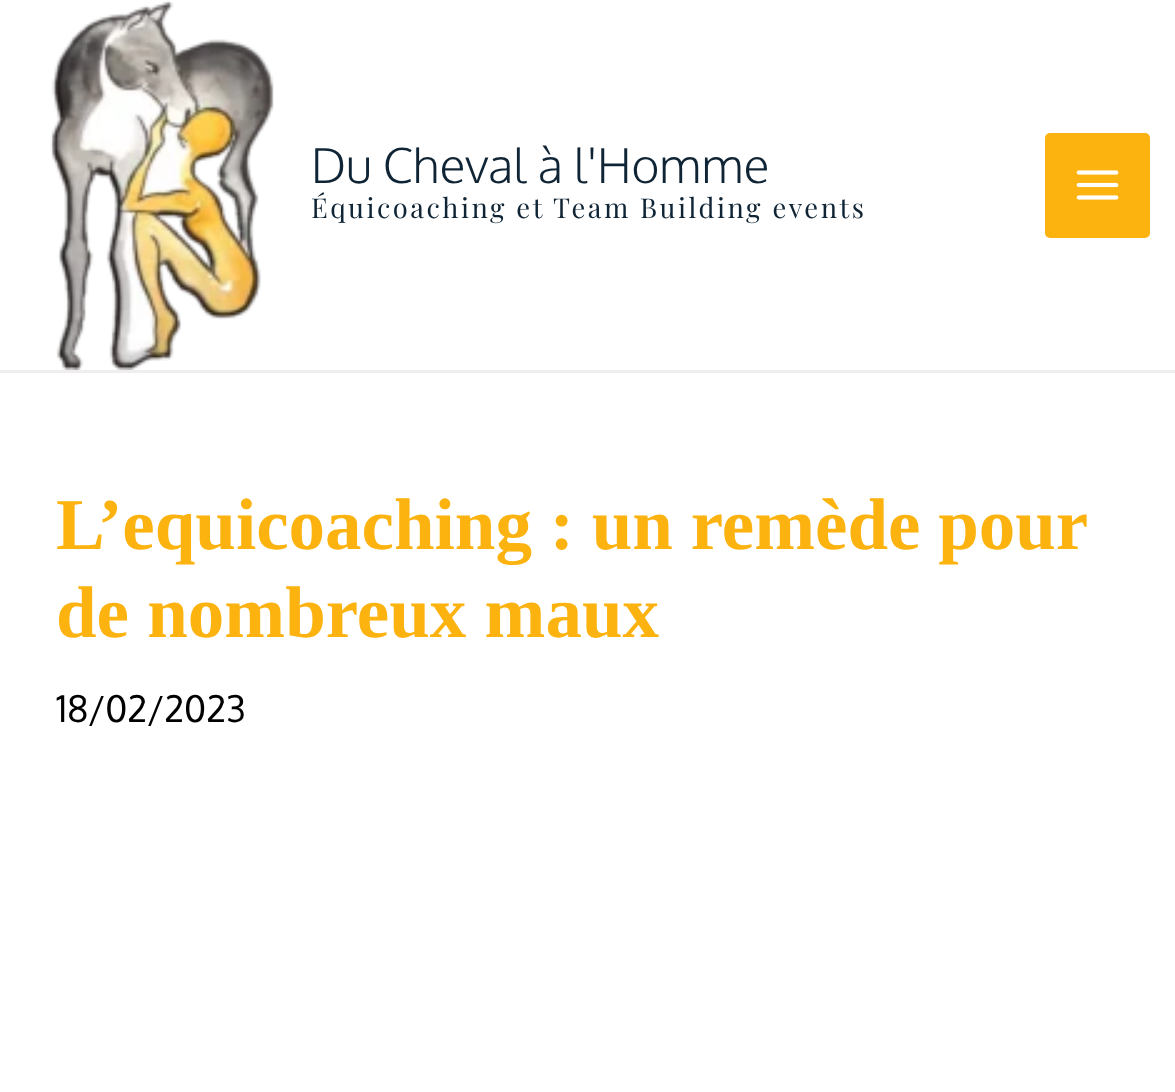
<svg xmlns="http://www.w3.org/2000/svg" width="1175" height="1092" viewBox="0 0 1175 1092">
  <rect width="100%" height="100%" fill="#ffffff"/>
  <rect x="0" y="370" width="1175" height="3" fill="#efeded"/>
  <image x="50" y="0" width="224" height="370" href="img1.png"/>
  <text x="311" y="183" font-family="Oxygen" font-size="47.9" font-weight="300" fill="#0f2435">Du Cheval à l'Homme</text>
  <text x="311" y="218" font-family="Playfair Display" font-size="27.4" letter-spacing="2.5" fill="#0f2435">Équicoaching et Team Building events</text>
  <rect x="1045" y="133" width="105" height="105" rx="5" fill="#fcb310"/>
  <image x="1076" y="170" width="43" height="30" href="img2.png"/>
  <text x="56" y="549" word-spacing="-0.5" font-family="Liberation Serif" font-size="73" font-weight="bold" fill="#fcb310">L’equicoaching : un remède pour</text>
  <text x="56" y="637" font-family="Liberation Serif" font-size="73" font-weight="bold" fill="#fcb310">de nombreux maux</text>
  <text x="56" y="722" font-family="Oxygen" font-size="36.5" fill="#000000">18/02/2023</text>
</svg>
